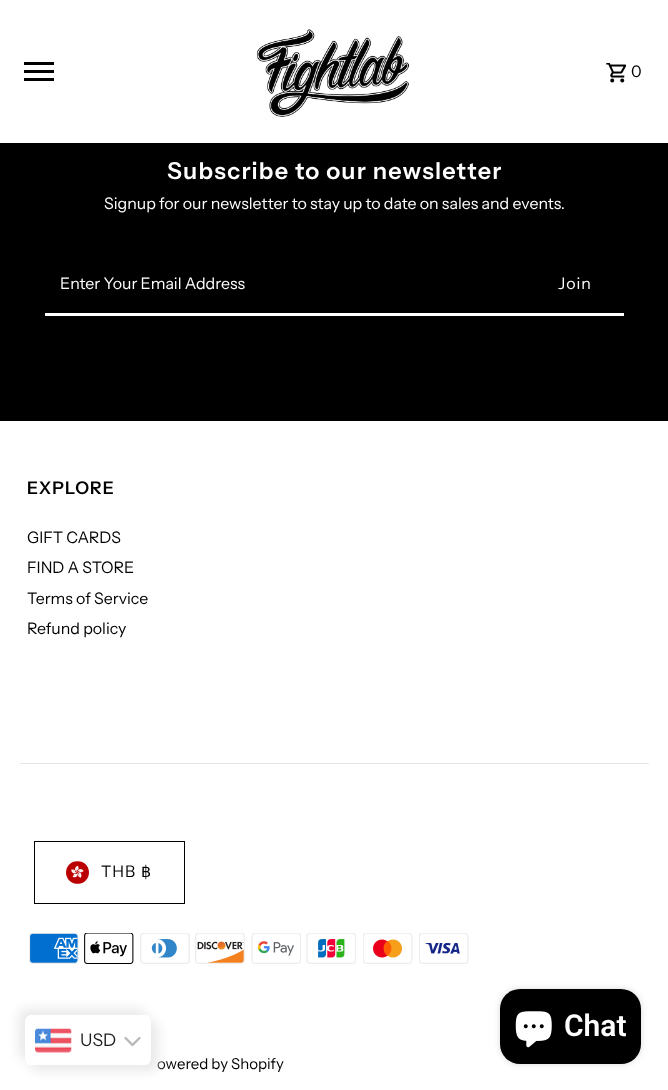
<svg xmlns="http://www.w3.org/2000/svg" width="668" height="1090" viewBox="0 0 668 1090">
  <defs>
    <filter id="blur1" x="-50%" y="-200%" width="200%" height="500%"><feGaussianBlur stdDeviation="3"/></filter>
    <filter id="blur2" x="-50%" y="-200%" width="200%" height="500%"><feGaussianBlur stdDeviation="6"/></filter>
  </defs>
  <rect width="100%" height="100%" fill="#ffffff"/>
  <rect x="24" y="78" width="30" height="3" fill="#000000"/>
  <rect x="24" y="70" width="30" height="3" fill="#000000"/>
  <rect x="24" y="62" width="30" height="3" fill="#000000"/>
  <image x="256" y="29" width="154" height="88" href="img1.png"/>
  <image x="606" y="63" width="20" height="20" href="img2.png"/>
  <text x="631" y="77" font-family="Instrument Sans" font-size="15.95" letter-spacing="1" fill="#000000">0</text>
  <rect x="0" y="143" width="668" height="278" fill="#000000"/>
  <text x="167" y="179" font-family="Instrument Sans" font-size="23.4" font-weight="600" letter-spacing="1.2" fill="#ffffff">Subscribe to our newsletter</text>
  <text x="104" y="209" font-family="Instrument Sans" font-size="15.95" fill="#ffffff">Signup for our newsletter to stay up to date on sales and events.</text>
  <rect x="45" y="313" width="579" height="3" fill="#ffffff"/>
  <text x="60" y="289" font-family="Instrument Sans" font-size="15.95" fill="#ffffff">Enter Your Email Address</text>
  <text x="558" y="289" font-family="Instrument Sans" font-size="15.95" letter-spacing="1" fill="#ffffff">Join</text>
  <text x="27" y="494" font-family="Instrument Sans" font-size="17.5" font-weight="600" letter-spacing="1" fill="#000000">EXPLORE</text>
  <text x="27" y="543" font-family="Instrument Sans" font-size="15.95" fill="#000000">GIFT CARDS</text>
  <text x="27" y="573" font-family="Instrument Sans" font-size="15.95" fill="#000000">FIND A STORE</text>
  <text x="27" y="604" font-family="Instrument Sans" font-size="15.95" fill="#000000">Terms of Service</text>
  <text x="27" y="634" font-family="Instrument Sans" font-size="15.95" fill="#000000">Refund policy</text>
  <rect x="20" y="763" width="629" height="1" fill="#e5e5e5"/>
  <rect x="34.5" y="841.5" width="150" height="62" fill="none" stroke="#000000"/>
  <image x="66" y="861" width="23" height="23" href="img3.png"/>
  <text x="101" y="877" font-family="Instrument Sans" font-size="15.95" letter-spacing="1" fill="#000000">THB</text>
  <text x="141" y="877" font-family="DejaVu Sans" font-size="15.95" letter-spacing="1" fill="#000000">฿</text>
  <image x="29" y="933" width="50" height="31" href="img4.png"/>
  <image x="84" y="933" width="50" height="31" href="img5.png"/>
  <image x="140" y="933" width="50" height="31" href="img6.png"/>
  <image x="195" y="933" width="50" height="31" href="img7.png"/>
  <image x="251" y="933" width="50" height="31" href="img8.png"/>
  <image x="306" y="933" width="50" height="31" href="img9.png"/>
  <image x="363" y="933" width="50" height="31" href="img10.png"/>
  <image x="419" y="933" width="50" height="31" href="img11.png"/>
  <text x="157" y="1069" font-family="Instrument Sans" font-size="15" fill="#000000">owered by Shopify</text>
  <rect x="500" y="989" width="141" height="75" rx="20" fill="#000000" fill-opacity="0.15" filter="url(#blur1)"/>
  <rect x="500" y="989" width="141" height="75" rx="20" fill="#000000"/>
  <image x="515" y="1011" width="37" height="37" href="img12.png"/>
  <text x="564" y="1036" font-family="Roboto" font-size="30" font-weight="600" fill="#ffffff">Chat</text>
  <rect x="19" y="1009" width="126" height="50" rx="6" fill="#e8e8e8" filter="url(#blur2)"/>
  <rect x="31" y="1021" width="127" height="50" rx="6" fill="#e8e8e8" filter="url(#blur2)"/>
  <rect x="25" y="1015" width="126" height="50" rx="6" fill="#ffffff"/>
  <image x="35" y="1028" width="37" height="25" href="img13.png"/>
  <text x="80" y="1046" font-family="Instrument Sans" font-size="17.5" fill="#1e1e1e">USD</text>
  <path d="M125.5 1038L132.5 1045L139.5 1038" fill="none" stroke="#b7b7b7" stroke-width="2.3" stroke-linecap="round" stroke-linejoin="round"/>
</svg>
